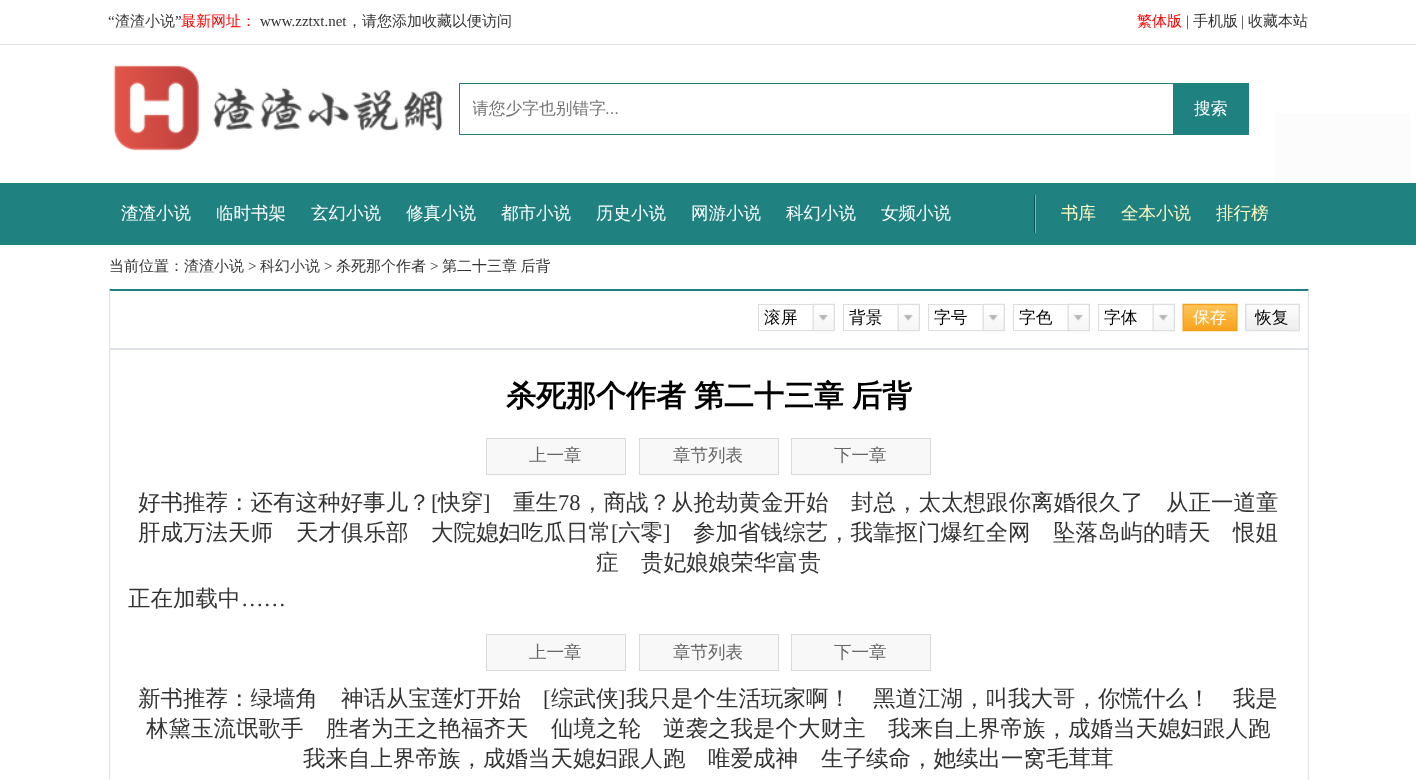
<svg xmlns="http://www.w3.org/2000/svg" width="1416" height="780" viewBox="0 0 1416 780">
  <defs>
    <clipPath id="clip1"><rect x="473" y="99" width="687" height="22"/></clipPath>
  </defs>
  <rect width="100%" height="100%" fill="#ffffff"/>
  <rect x="1275" y="113" width="135" height="70" fill="#fcfcfc"/>
  <rect x="0" y="44" width="1416" height="1" fill="#dee1e6"/>
  <text x="108" y="26" font-family="Liberation Serif" font-size="15" fill="#333333">“</text>
  <text x="115" y="26" font-family="WenQuanYi Zen Hei" font-size="15" font-weight="500" fill="#333333">渣渣小说</text>
  <text x="175" y="26" font-family="Liberation Serif" font-size="15" fill="#333333">”</text>
  <text x="181" y="26" font-family="WenQuanYi Zen Hei" font-size="15" font-weight="500" fill="#ff0000">最新网址：</text>
  <text x="260" y="26" font-family="Liberation Serif" font-size="15" fill="#333333">www.zztxt.net</text>
  <text x="347" y="26" font-family="WenQuanYi Zen Hei" font-size="15" font-weight="500" fill="#333333">，请您添加收藏以便访问</text>
  <text x="1137" y="26" font-family="WenQuanYi Zen Hei" font-size="15" font-weight="500" fill="#ff0000">繁体版</text>
  <text x="1186" y="26" font-family="Liberation Serif" font-size="15" fill="#333333">|</text>
  <text x="1193" y="26" font-family="WenQuanYi Zen Hei" font-size="15" font-weight="500" fill="#333333">手机版</text>
  <text x="1241" y="26" font-family="Liberation Serif" font-size="15" fill="#333333">|</text>
  <text x="1248" y="26" font-family="WenQuanYi Zen Hei" font-size="15" font-weight="500" fill="#333333">收藏本站</text>
  <image x="113" y="65" width="330" height="86" href="img1.png"/>
  <rect x="459.5" y="83.5" width="714" height="51" fill="none" stroke="#208181"/>
  <g clip-path="url(#clip1)">
    <text x="472" y="114" font-family="WenQuanYi Zen Hei" font-size="16.75" font-weight="500" fill="#757575">请您少字也别错字</text>
  </g>
  <text x="605" y="114" font-family="Liberation Sans" font-size="16.75" fill="#757575">...</text>
  <rect x="1174" y="83" width="75" height="52" fill="#208181"/>
  <text x="1194" y="114" font-family="WenQuanYi Zen Hei" font-size="16.75" font-weight="500" fill="#ffffff">搜索</text>
  <rect x="0" y="183" width="1416" height="62" fill="#208181"/>
  <rect x="1034" y="195" width="1" height="38" fill="#085656"/>
  <text x="121" y="219" font-family="WenQuanYi Zen Hei" font-size="17.5" font-weight="500" fill="#ffffff">渣渣小说</text>
  <text x="216" y="219" font-family="WenQuanYi Zen Hei" font-size="17.5" font-weight="500" fill="#ffffff">临时书架</text>
  <text x="311" y="219" font-family="WenQuanYi Zen Hei" font-size="17.5" font-weight="500" fill="#ffffff">玄幻小说</text>
  <text x="406" y="219" font-family="WenQuanYi Zen Hei" font-size="17.5" font-weight="500" fill="#ffffff">修真小说</text>
  <text x="501" y="219" font-family="WenQuanYi Zen Hei" font-size="17.5" font-weight="500" fill="#ffffff">都市小说</text>
  <text x="596" y="219" font-family="WenQuanYi Zen Hei" font-size="17.5" font-weight="500" fill="#ffffff">历史小说</text>
  <text x="691" y="219" font-family="WenQuanYi Zen Hei" font-size="17.5" font-weight="500" fill="#ffffff">网游小说</text>
  <text x="786" y="219" font-family="WenQuanYi Zen Hei" font-size="17.5" font-weight="500" fill="#ffffff">科幻小说</text>
  <text x="881" y="219" font-family="WenQuanYi Zen Hei" font-size="17.5" font-weight="500" fill="#ffffff">女频小说</text>
  <rect x="1035" y="195" width="1" height="38" fill="#5cc5c5"/>
  <text x="1061" y="219" font-family="WenQuanYi Zen Hei" font-size="17.5" font-weight="500" fill="#fff9c2">书库</text>
  <text x="1121" y="219" font-family="WenQuanYi Zen Hei" font-size="17.5" font-weight="500" fill="#fff9c2">全本小说</text>
  <text x="1216" y="219" font-family="WenQuanYi Zen Hei" font-size="17.5" font-weight="500" fill="#fff9c2">排行榜</text>
  <text x="109" y="271" font-family="WenQuanYi Zen Hei" font-size="15" font-weight="500" fill="#333333">当前位置：渣渣小说</text>
  <text x="248" y="271" font-family="Liberation Serif" font-size="15" fill="#333333">&gt;</text>
  <text x="260" y="271" font-family="WenQuanYi Zen Hei" font-size="15" font-weight="500" fill="#333333">科幻小说</text>
  <text x="324" y="271" font-family="Liberation Serif" font-size="15" fill="#333333">&gt;</text>
  <text x="336" y="271" font-family="WenQuanYi Zen Hei" font-size="15" font-weight="500" fill="#333333">杀死那个作者</text>
  <text x="430" y="271" font-family="Liberation Serif" font-size="15" fill="#333333">&gt;</text>
  <text x="442" y="271" word-spacing="-1" font-family="WenQuanYi Zen Hei" font-size="15" font-weight="500" fill="#333333">第二十三章 后背</text>
  <path d="M109 289H1309L1308 291H110Z" fill="#208181"/>
  <path d="M1309 289V349L1308 348V291Z" fill="#dee1e6"/>
  <rect x="109" y="348" width="1200" height="1" fill="#dee1e6"/>
  <path d="M109 349V289L110 291V348Z" fill="#dee1e6"/>
  <rect x="758.5" y="304.5" width="76" height="26" fill="none" stroke="#dddddd"/>
  <text x="764" y="323" font-family="WenQuanYi Zen Hei" font-size="16.75" font-weight="500" fill="#000000">滚屏</text>
  <image x="812" y="303" width="23" height="29" href="img2.png"/>
  <rect x="843.5" y="304.5" width="76" height="26" fill="none" stroke="#dddddd"/>
  <text x="849" y="323" font-family="WenQuanYi Zen Hei" font-size="16.75" font-weight="500" fill="#000000">背景</text>
  <image x="897" y="303" width="23" height="29" href="img3.png"/>
  <rect x="928.5" y="304.5" width="76" height="26" fill="none" stroke="#dddddd"/>
  <text x="934" y="323" font-family="WenQuanYi Zen Hei" font-size="16.75" font-weight="500" fill="#000000">字号</text>
  <image x="982" y="303" width="23" height="29" href="img2.png"/>
  <rect x="1013.5" y="304.5" width="76" height="26" fill="none" stroke="#dddddd"/>
  <text x="1019" y="323" font-family="WenQuanYi Zen Hei" font-size="16.75" font-weight="500" fill="#000000">字色</text>
  <image x="1067" y="303" width="23" height="29" href="img2.png"/>
  <rect x="1098.5" y="304.5" width="76" height="26" fill="none" stroke="#dddddd"/>
  <text x="1104" y="323" font-family="WenQuanYi Zen Hei" font-size="16.75" font-weight="500" fill="#000000">字体</text>
  <image x="1152" y="303" width="23" height="29" href="img2.png"/>
  <image x="1182" y="303" width="56" height="29" href="img4.png"/>
  <text x="1193" y="323" font-family="WenQuanYi Zen Hei" font-size="16.75" font-weight="500" fill="#ffffff">保存</text>
  <image x="1245" y="303" width="55" height="29" href="img5.png"/>
  <text x="1255" y="323" font-family="WenQuanYi Zen Hei" font-size="16.75" font-weight="500" fill="#000000">恢复</text>
  <rect x="109.5" y="349.5" width="1199" height="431" fill="none" stroke="#dee1e6"/>
  <text x="506" y="406" word-spacing="-1" font-family="WenQuanYi Zen Hei" font-size="30" font-weight="bold" fill="#000000">杀死那个作者 第二十三章 后背</text>
  <rect x="486.5" y="438.5" width="139" height="36" fill="#f8f8f8" stroke="#d9d9d9"/>
  <text x="529" y="461" font-family="WenQuanYi Zen Hei" font-size="17.5" font-weight="500" fill="#666666">上一章</text>
  <rect x="639.5" y="438.5" width="139" height="36" fill="#f8f8f8" stroke="#d9d9d9"/>
  <text x="673" y="461" font-family="WenQuanYi Zen Hei" font-size="17.5" font-weight="500" fill="#666666">章节列表</text>
  <rect x="791.5" y="438.5" width="139" height="36" fill="#f8f8f8" stroke="#d9d9d9"/>
  <text x="834" y="461" font-family="WenQuanYi Zen Hei" font-size="17.5" font-weight="500" fill="#666666">下一章</text>
  <text x="138" y="510" font-family="WenQuanYi Zen Hei" font-size="22.5" font-weight="500" fill="#333333">好书推荐：还有这种好事儿？</text>
  <text x="431" y="510" font-family="Liberation Serif" font-size="22.5" fill="#333333">[</text>
  <text x="438" y="510" font-family="WenQuanYi Zen Hei" font-size="22.5" font-weight="500" fill="#333333">快穿</text>
  <text x="483" y="510" font-family="Liberation Serif" font-size="22.5" fill="#333333">]</text>
  <text x="513" y="510" font-family="WenQuanYi Zen Hei" font-size="22.5" font-weight="500" fill="#333333">重生</text>
  <text x="558" y="510" font-family="Liberation Serif" font-size="22.5" fill="#333333">78</text>
  <text x="581" y="510" font-family="WenQuanYi Zen Hei" font-size="22.5" font-weight="500" fill="#333333">，商战？从抢劫黄金开始</text>
  <text x="851" y="510" font-family="WenQuanYi Zen Hei" font-size="22.5" font-weight="500" fill="#333333">封总，太太想跟你离婚很久了</text>
  <text x="1166" y="510" font-family="WenQuanYi Zen Hei" font-size="22.5" font-weight="500" fill="#333333">从正一道童</text>
  <text x="138" y="540" font-family="WenQuanYi Zen Hei" font-size="22.5" font-weight="500" fill="#333333">肝成万法天师</text>
  <text x="296" y="540" font-family="WenQuanYi Zen Hei" font-size="22.5" font-weight="500" fill="#333333">天才俱乐部</text>
  <text x="431" y="540" font-family="WenQuanYi Zen Hei" font-size="22.5" font-weight="500" fill="#333333">大院媳妇吃瓜日常</text>
  <text x="611" y="540" font-family="Liberation Serif" font-size="22.5" fill="#333333">[</text>
  <text x="618" y="540" font-family="WenQuanYi Zen Hei" font-size="22.5" font-weight="500" fill="#333333">六零</text>
  <text x="663" y="540" font-family="Liberation Serif" font-size="22.5" fill="#333333">]</text>
  <text x="693" y="540" font-family="WenQuanYi Zen Hei" font-size="22.5" font-weight="500" fill="#333333">参加省钱综艺，我靠抠门爆红全网</text>
  <text x="1053" y="540" font-family="WenQuanYi Zen Hei" font-size="22.5" font-weight="500" fill="#333333">坠落岛屿的晴天</text>
  <text x="1233" y="540" font-family="WenQuanYi Zen Hei" font-size="22.5" font-weight="500" fill="#333333">恨姐</text>
  <text x="596" y="570" font-family="WenQuanYi Zen Hei" font-size="22.5" font-weight="500" fill="#333333">症</text>
  <text x="641" y="570" font-family="WenQuanYi Zen Hei" font-size="22.5" font-weight="500" fill="#333333">贵妃娘娘荣华富贵</text>
  <text x="128" y="606" font-family="WenQuanYi Zen Hei" font-size="22.5" font-weight="500" fill="#333333">正在加载中</text>
  <text x="241" y="606" font-family="Liberation Serif" font-size="22.5" fill="#333333">……</text>
  <rect x="486.5" y="634.5" width="139" height="36" fill="#f8f8f8" stroke="#d9d9d9"/>
  <text x="529" y="658" font-family="WenQuanYi Zen Hei" font-size="17.5" font-weight="500" fill="#666666">上一章</text>
  <rect x="639.5" y="634.5" width="139" height="36" fill="#f8f8f8" stroke="#d9d9d9"/>
  <text x="673" y="658" font-family="WenQuanYi Zen Hei" font-size="17.5" font-weight="500" fill="#666666">章节列表</text>
  <rect x="791.5" y="634.5" width="139" height="36" fill="#f8f8f8" stroke="#d9d9d9"/>
  <text x="834" y="658" font-family="WenQuanYi Zen Hei" font-size="17.5" font-weight="500" fill="#666666">下一章</text>
  <text x="138" y="706" font-family="WenQuanYi Zen Hei" font-size="22.5" font-weight="500" fill="#333333">新书推荐：绿墙角</text>
  <text x="341" y="706" font-family="WenQuanYi Zen Hei" font-size="22.5" font-weight="500" fill="#333333">神话从宝莲灯开始</text>
  <text x="543" y="706" font-family="Liberation Serif" font-size="22.5" fill="#333333">[</text>
  <text x="551" y="706" font-family="WenQuanYi Zen Hei" font-size="22.5" font-weight="500" fill="#333333">综武侠</text>
  <text x="618" y="706" font-family="Liberation Serif" font-size="22.5" fill="#333333">]</text>
  <text x="626" y="706" font-family="WenQuanYi Zen Hei" font-size="22.5" font-weight="500" fill="#333333">我只是个生活玩家啊！</text>
  <text x="873" y="706" font-family="WenQuanYi Zen Hei" font-size="22.5" font-weight="500" fill="#333333">黑道江湖，叫我大哥，你慌什么！</text>
  <text x="1233" y="706" font-family="WenQuanYi Zen Hei" font-size="22.5" font-weight="500" fill="#333333">我是</text>
  <text x="146" y="736" font-family="WenQuanYi Zen Hei" font-size="22.5" font-weight="500" fill="#333333">林黛玉流氓歌手</text>
  <text x="326" y="736" font-family="WenQuanYi Zen Hei" font-size="22.5" font-weight="500" fill="#333333">胜者为王之艳福齐天</text>
  <text x="551" y="736" font-family="WenQuanYi Zen Hei" font-size="22.5" font-weight="500" fill="#333333">仙境之轮</text>
  <text x="663" y="736" font-family="WenQuanYi Zen Hei" font-size="22.5" font-weight="500" fill="#333333">逆袭之我是个大财主</text>
  <text x="888" y="736" font-family="WenQuanYi Zen Hei" font-size="22.5" font-weight="500" fill="#333333">我来自上界帝族，成婚当天媳妇跟人跑</text>
  <text x="303" y="766" font-family="WenQuanYi Zen Hei" font-size="22.5" font-weight="500" fill="#333333">我来自上界帝族，成婚当天媳妇跟人跑</text>
  <text x="708" y="766" font-family="WenQuanYi Zen Hei" font-size="22.5" font-weight="500" fill="#333333">唯爱成神</text>
  <text x="821" y="766" font-family="WenQuanYi Zen Hei" font-size="22.5" font-weight="500" fill="#333333">生子续命，她续出一窝毛茸茸</text>
</svg>
